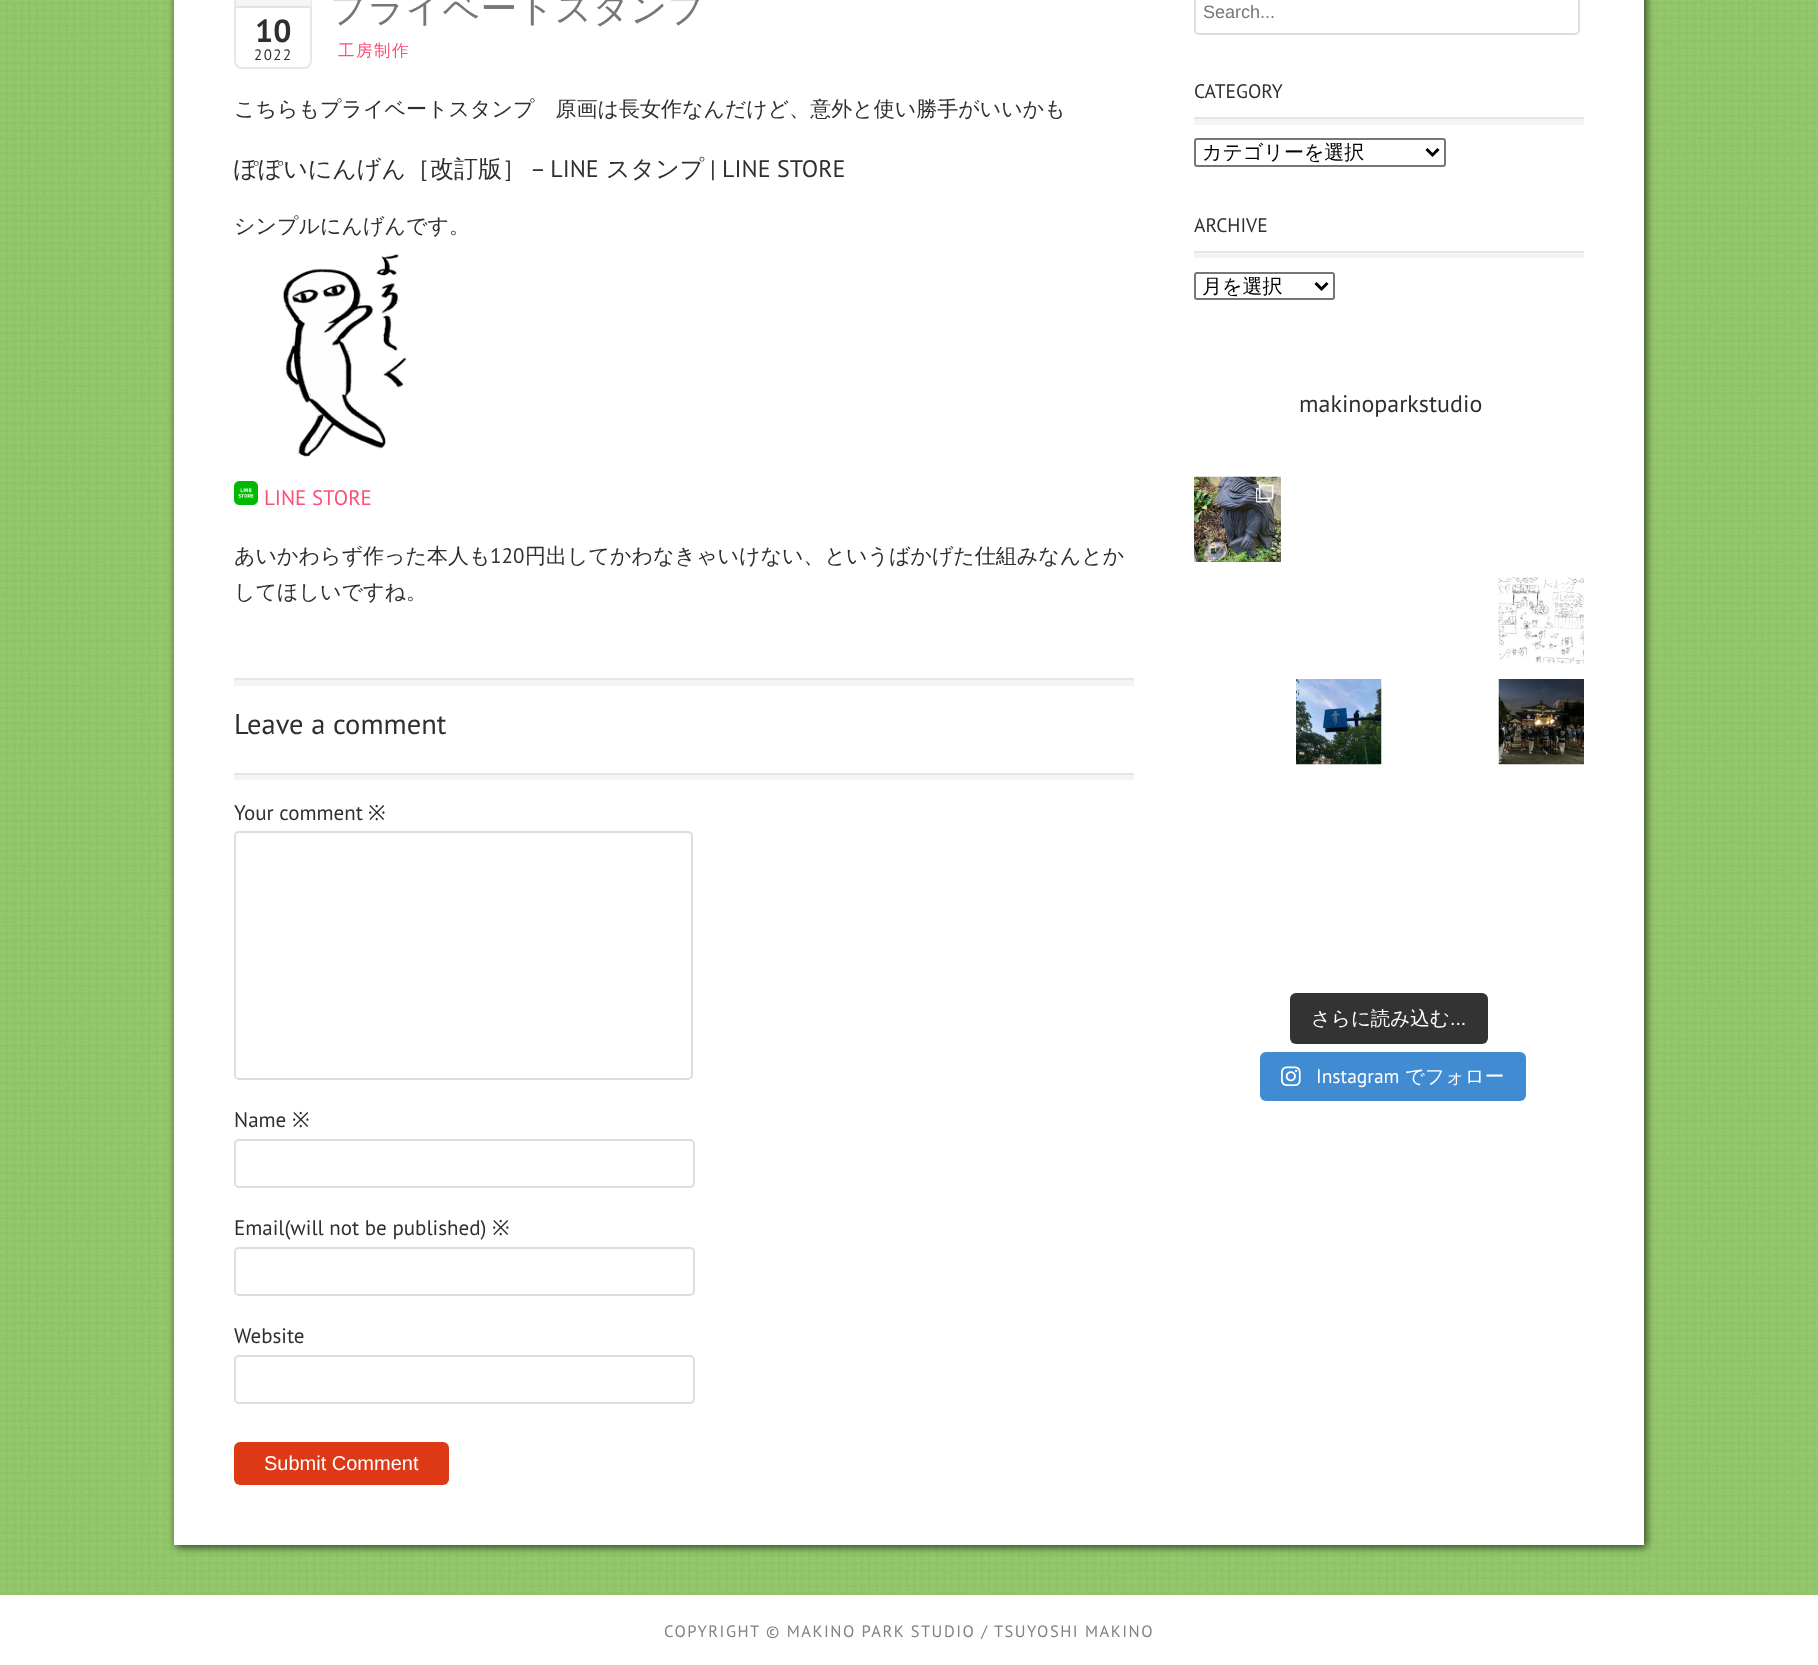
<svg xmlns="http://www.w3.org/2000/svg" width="1818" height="1665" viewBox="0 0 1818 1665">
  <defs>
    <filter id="blur1" x="-50%" y="-200%" width="200%" height="500%"><feGaussianBlur stdDeviation="4"/></filter>
  </defs>
  <rect width="100%" height="100%" fill="#95c96c"/>
  <image x="0" y="0" width="1818" height="1595" href="img1.png"/>
  <rect x="176" y="-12" width="1470" height="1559" fill="#000000" fill-opacity="0.7" filter="url(#blur1)"/>
  <rect x="174" y="0" width="1470" height="1545" fill="#ffffff"/>
  <rect x="235" y="-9" width="76" height="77" rx="7" fill="none" stroke="#e8e8e8" stroke-width="2"/>
  <rect x="236" y="0" width="75" height="6" fill="#f5f5f5"/>
  <rect x="236" y="6" width="75" height="2" fill="#e3e3e3"/>
  <text x="255" y="42" font-family="PT Sans" font-size="32" font-weight="bold" fill="#302e30">10</text>
  <text x="254" y="60" font-family="PT Sans" font-size="15" letter-spacing="1.5" fill="#302e30">2022</text>
  <text x="330" y="21" font-family="WenQuanYi Zen Hei" font-size="36.75" font-weight="500" fill="#777777">プライベートスタンプ</text>
  <text x="338" y="56" font-family="WenQuanYi Zen Hei" font-size="16.5" font-weight="500" letter-spacing="1.5" fill="#fc4e77">工房制作</text>
  <text x="234" y="116" font-family="WenQuanYi Zen Hei" font-size="21" font-weight="500" fill="#302e30">こちらもプライベートスタンプ　原画は長女作なんだけど、意外と使い勝手がいいかも</text>
  <text x="234" y="177" font-family="WenQuanYi Zen Hei" font-size="24" font-weight="500" fill="#302e30">ぽぽいにんげん［改訂版］</text>
  <text x="530" y="177" font-family="PT Sans" font-size="24" fill="#302e30">– LINE</text>
  <text x="606" y="177" font-family="WenQuanYi Zen Hei" font-size="24" font-weight="500" fill="#302e30">スタンプ</text>
  <text x="710" y="177" font-family="PT Sans" font-size="24" fill="#302e30">| LINE STORE</text>
  <text x="234" y="233" font-family="WenQuanYi Zen Hei" font-size="21" font-weight="500" fill="#302e30">シンプルにんげんです。</text>
  <image x="282" y="253" width="125" height="204" href="img2.png"/>
  <image x="234" y="481" width="24" height="24" href="img3.png"/>
  <text x="264" y="505" font-family="PT Sans" font-size="21" fill="#fc4e77">LINE STORE</text>
  <text x="234" y="563" font-family="WenQuanYi Zen Hei" font-size="21" font-weight="500" fill="#302e30">あいかわらず作った本人も</text>
  <text x="490" y="563" font-family="PT Sans" font-size="21" fill="#302e30">120</text>
  <text x="525" y="563" font-family="WenQuanYi Zen Hei" font-size="21" font-weight="500" fill="#302e30">円出してかわなきゃいけない、というばかげた仕組みなんとか</text>
  <text x="234" y="599" font-family="WenQuanYi Zen Hei" font-size="21" font-weight="500" fill="#302e30">してほしいですね。</text>
  <rect x="234" y="680" width="900" height="6" fill="#f4f4f4"/>
  <rect x="234" y="678" width="900" height="2" fill="#e6e6e6"/>
  <text x="234" y="734" font-family="PT Sans" font-size="28.5" fill="#302e30">Leave a comment</text>
  <rect x="234" y="775" width="900" height="5" fill="#f4f4f4"/>
  <rect x="234" y="773" width="900" height="2" fill="#e6e6e6"/>
  <text x="234" y="820" font-family="PT Sans" font-size="21" fill="#302e30">Your comment</text>
  <text x="368" y="820" font-family="Noto Sans" font-size="21" fill="#302e30">※</text>
  <rect x="235" y="832" width="457" height="247" rx="4" fill="none" stroke="#dddddd" stroke-width="2"/>
  <text x="234" y="1127" font-family="PT Sans" font-size="21" fill="#302e30">Name</text>
  <text x="292" y="1127" font-family="Noto Sans" font-size="21" fill="#302e30">※</text>
  <rect x="235" y="1140" width="459" height="47" rx="4" fill="none" stroke="#dddddd" stroke-width="2"/>
  <text x="234" y="1235" font-family="PT Sans" font-size="21" fill="#302e30">Email(will not be published)</text>
  <text x="492" y="1235" font-family="Noto Sans" font-size="21" fill="#302e30">※</text>
  <rect x="235" y="1248" width="459" height="47" rx="4" fill="none" stroke="#dddddd" stroke-width="2"/>
  <text x="234" y="1343" font-family="PT Sans" font-size="21" fill="#302e30">Website</text>
  <rect x="235" y="1356" width="459" height="47" rx="4" fill="none" stroke="#dddddd" stroke-width="2"/>
  <rect x="234" y="1442" width="215" height="43" rx="6" fill="#de3917"/>
  <text x="264" y="1470" font-family="Liberation Sans" font-size="20" fill="#ffffff">Submit Comment</text>
  <rect x="1195" y="-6" width="384" height="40" rx="4" fill="none" stroke="#dddddd" stroke-width="2"/>
  <text x="1203" y="18" font-family="Liberation Sans" font-size="18" fill="#777777">Search...</text>
  <rect x="1194" y="119" width="390" height="6" fill="#f4f4f4"/>
  <rect x="1194" y="117" width="390" height="2" fill="#e6e6e6"/>
  <text x="1194" y="98" font-family="PT Sans" font-size="19.5" fill="#302e30">CATEGORY</text>
  <rect x="1195" y="139" width="250" height="27" rx="2" fill="none" stroke="#767676" stroke-width="2"/>
  <path d="M1426.5 149L1432.5 155L1438.5 149" fill="none" stroke="#000000" stroke-width="3"/>
  <text x="1202" y="159" font-family="WenQuanYi Zen Hei" font-size="20" font-weight="500" fill="#000000">カテゴリーを選択</text>
  <rect x="1194" y="253" width="390" height="5" fill="#f4f4f4"/>
  <rect x="1194" y="251" width="390" height="2" fill="#e6e6e6"/>
  <text x="1194" y="232" font-family="PT Sans" font-size="19.5" fill="#302e30">ARCHIVE</text>
  <rect x="1195" y="273" width="139" height="26" rx="2" fill="none" stroke="#767676" stroke-width="2"/>
  <path d="M1315.5 283L1321.5 289L1327.5 283" fill="none" stroke="#000000" stroke-width="3"/>
  <text x="1202" y="293" font-family="WenQuanYi Zen Hei" font-size="20" font-weight="500" fill="#000000">月を選択</text>
  <text x="1299" y="412" font-family="PT Sans" font-size="24" fill="#302e30">makinoparkstudio</text>
  <image x="1194" y="476" width="87" height="86" href="img4.png"/>
  <image x="1256" y="485" width="18" height="18" href="img5.png"/>
  <image x="1498" y="577" width="86" height="87" href="img6.png"/>
  <image x="1559" y="585" width="18" height="18" href="img7.png"/>
  <image x="1296" y="679" width="86" height="86" href="img8.png"/>
  <image x="1498" y="679" width="86" height="86" href="img9.png"/>
  <rect x="1290" y="993" width="198" height="51" rx="6" fill="#333333"/>
  <text x="1311" y="1025" font-family="WenQuanYi Zen Hei" font-size="19.5" font-weight="500" fill="#ffffff">さらに読み込む</text>
  <text x="1450" y="1025" font-family="Liberation Sans" font-size="19.5" fill="#ffffff">...</text>
  <rect x="1260" y="1052" width="266" height="49" rx="6" fill="#408bd1"/>
  <image x="1281" y="1066" width="20" height="20" href="img10.png"/>
  <text x="1316" y="1083" font-family="PT Sans" font-size="19.5" fill="#ffffff">Instagram</text>
  <text x="1405" y="1083" font-family="WenQuanYi Zen Hei" font-size="19.5" font-weight="500" fill="#ffffff">でフォロー</text>
  <rect x="0" y="1595" width="1818" height="70" fill="#ffffff"/>
  <text x="664" y="1637" font-family="PT Sans" font-size="16.5" letter-spacing="1.5" fill="#857e85">COPYRIGHT © MAKINO PARK STUDIO / TSUYOSHI MAKINO</text>
</svg>
